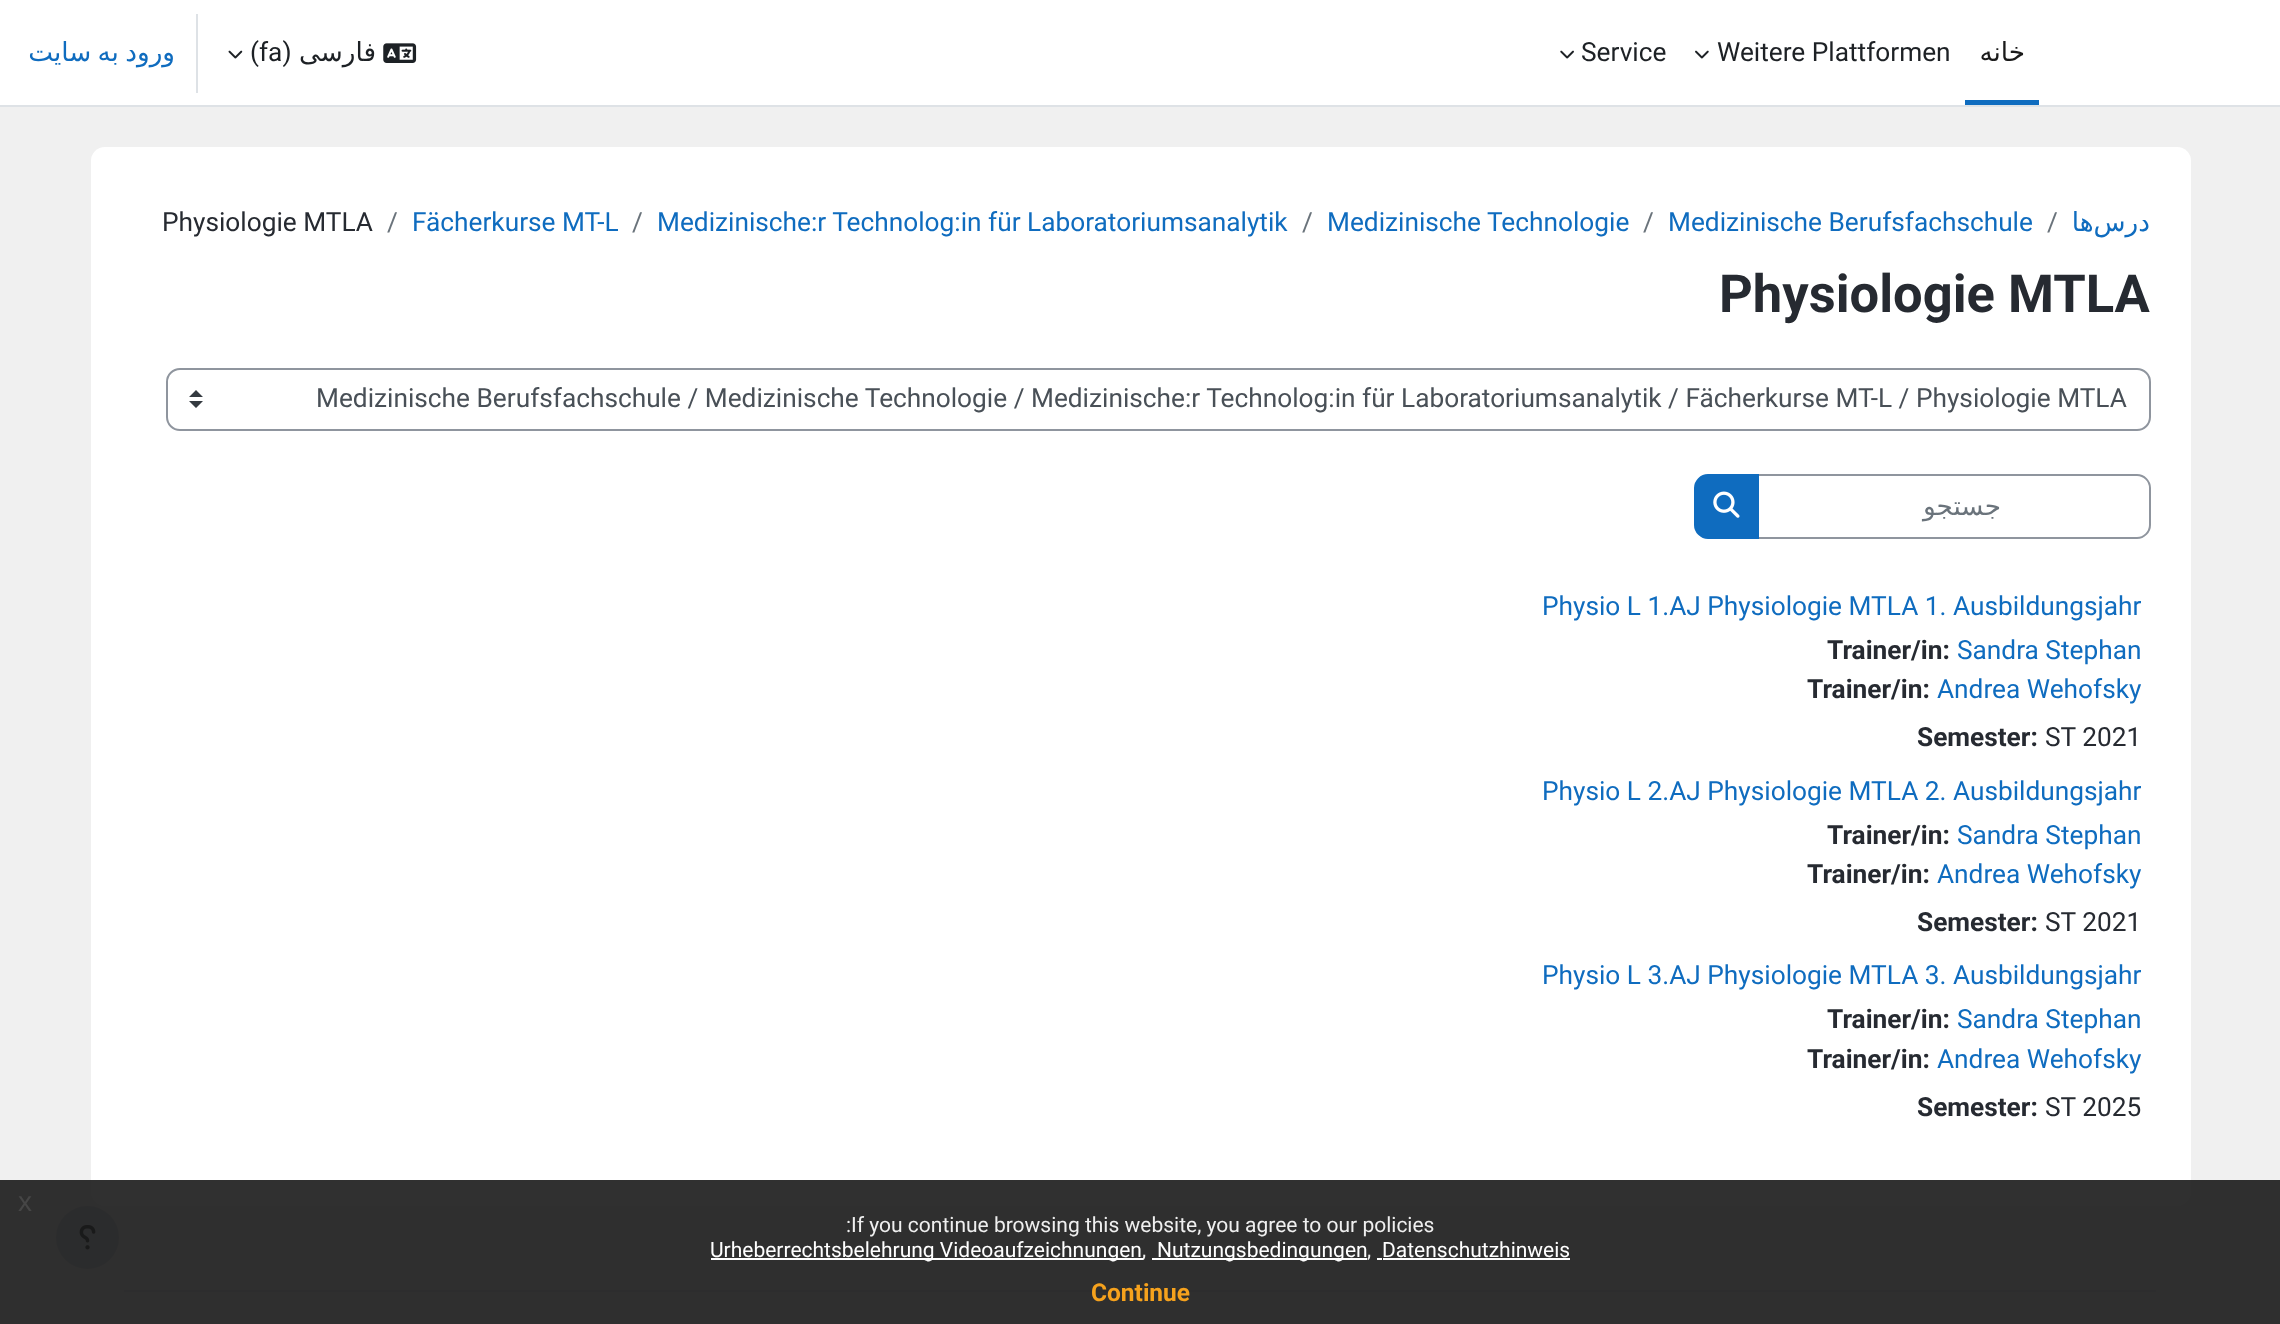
<svg xmlns="http://www.w3.org/2000/svg" width="2280" height="1324" viewBox="0 0 2280 1324">
  <rect width="100%" height="100%" fill="#f0f0f0"/>
  <rect x="0" y="0" width="2280" height="105" fill="#ffffff"/>
  <rect x="0" y="105" width="2280" height="2" fill="#dee2e6"/>
  <text x="175" y="61" word-spacing="-2" font-family="DejaVu Sans" font-size="26.25" direction="rtl" fill="#0f6cbf">ورود به سایت</text>
  <rect x="196" y="14" width="2" height="79" fill="#dee2e6"/>
  <image x="228" y="50" width="15" height="9" href="img1.png"/>
  <text x="250" y="61" font-family="Roboto" font-size="26.25" fill="#1d2125">(fa)</text>
  <text x="376" y="61" font-family="DejaVu Sans" font-size="26.25" direction="rtl" fill="#1d2125">فارسی</text>
  <image x="383" y="43" width="34" height="20" href="img2.png"/>
  <image x="1560" y="50" width="14" height="9" href="img3.png"/>
  <text x="1581" y="61" font-family="Roboto" font-size="26.25" fill="#1d2125">Service</text>
  <image x="1695" y="50" width="14" height="9" href="img4.png"/>
  <text x="1717" y="61" font-family="Roboto" font-size="26.25" fill="#1d2125">Weitere Plattformen</text>
  <rect x="1965" y="100" width="74" height="5" fill="#0f6cbf"/>
  <text x="2025" y="61" font-family="DejaVu Sans" font-size="26.25" direction="rtl" fill="#1a1a1a">خانه</text>
  <rect x="91" y="147" width="2100" height="1059" rx="14" fill="#ffffff"/>
  <text x="162" y="231" font-family="Roboto" font-size="26.25" fill="#262a31">Physiologie MTLA</text>
  <text x="387" y="231" font-family="Roboto" font-size="26.25" fill="#6a737b">/</text>
  <text x="412" y="231" font-family="Roboto" font-size="26.25" fill="#0f6cbf">Fächerkurse MT-L</text>
  <text x="632" y="231" font-family="Roboto" font-size="26.25" fill="#6a737b">/</text>
  <text x="657" y="231" font-family="Roboto" font-size="26.25" fill="#0f6cbf">Medizinische:r Technolog:in für Laboratoriumsanalytik</text>
  <text x="1302" y="231" font-family="Roboto" font-size="26.25" fill="#6a737b">/</text>
  <text x="1327" y="231" font-family="Roboto" font-size="26.25" fill="#0f6cbf">Medizinische Technologie</text>
  <text x="1643" y="231" font-family="Roboto" font-size="26.25" fill="#6a737b">/</text>
  <text x="1668" y="231" font-family="Roboto" font-size="26.25" fill="#0f6cbf">Medizinische Berufsfachschule</text>
  <text x="2047" y="231" font-family="Roboto" font-size="26.25" fill="#6a737b">/</text>
  <text x="2150" y="231" font-family="DejaVu Sans" font-size="26.25" direction="rtl" fill="#0f6cbf">درس‌ها</text>
  <text x="1719" y="312" font-family="Roboto" font-size="52.5" font-weight="bold" fill="#262a31">Physiologie MTLA</text>
  <path d="M196 390L189 397H203ZM196 408L189 401H203Z" fill="#343a40"/>
  <rect x="167" y="369" width="1983" height="61" rx="13" fill="none" stroke="#8f959e" stroke-width="2"/>
  <text x="316" y="407" font-family="Roboto" font-size="26.25" fill="#495057">Medizinische Berufsfachschule / Medizinische Technologie / Medizinische:r Technolog:in für Laboratoriumsanalytik / Fächerkurse MT-L / Physiologie MTLA</text>
  <path d="M1758 475H2137C2144 475 2150 481 2150 488V525C2150 532 2144 538 2137 538H1758Z" fill="none" stroke="#8f959e" stroke-width="2"/>
  <path d="M1708 475H1758V538H1708C1701 538 1695 532 1695 525V488C1695 481 1701 475 1708 475Z" fill="#0f6cbf" stroke="#0f6cbf" stroke-width="2"/>
  <image x="1713" y="491" width="27" height="27" href="img5.png"/>
  <text x="2001" y="515" font-family="DejaVu Sans" font-size="26.25" direction="rtl" fill="#6a737b">جستجو</text>
  <text x="1542" y="615" font-family="Roboto" font-size="26.25" fill="#0f6cbf">Physio L 1.AJ Physiologie MTLA 1. Ausbildungsjahr</text>
  <text x="1827" y="659" font-family="Roboto" font-size="26.25" font-weight="bold" fill="#262a31">Trainer/in:</text>
  <text x="1957" y="659" font-family="Roboto" font-size="26.25" fill="#0f6cbf">Sandra Stephan</text>
  <text x="1807" y="698" font-family="Roboto" font-size="26.25" font-weight="bold" fill="#262a31">Trainer/in:</text>
  <text x="1937" y="698" font-family="Roboto" font-size="26.25" fill="#0f6cbf">Andrea Wehofsky</text>
  <text x="1917" y="746" font-family="Roboto" font-size="26.25" font-weight="bold" fill="#262a31">Semester:</text>
  <text x="2045" y="746" font-family="Roboto" font-size="26.25" fill="#262a31">ST 2021</text>
  <text x="1542" y="800" font-family="Roboto" font-size="26.25" fill="#0f6cbf">Physio L 2.AJ Physiologie MTLA 2. Ausbildungsjahr</text>
  <text x="1827" y="844" font-family="Roboto" font-size="26.25" font-weight="bold" fill="#262a31">Trainer/in:</text>
  <text x="1957" y="844" font-family="Roboto" font-size="26.25" fill="#0f6cbf">Sandra Stephan</text>
  <text x="1807" y="883" font-family="Roboto" font-size="26.25" font-weight="bold" fill="#262a31">Trainer/in:</text>
  <text x="1937" y="883" font-family="Roboto" font-size="26.25" fill="#0f6cbf">Andrea Wehofsky</text>
  <text x="1917" y="931" font-family="Roboto" font-size="26.25" font-weight="bold" fill="#262a31">Semester:</text>
  <text x="2045" y="931" font-family="Roboto" font-size="26.25" fill="#262a31">ST 2021</text>
  <text x="1542" y="984" font-family="Roboto" font-size="26.25" fill="#0f6cbf">Physio L 3.AJ Physiologie MTLA 3. Ausbildungsjahr</text>
  <text x="1827" y="1028" font-family="Roboto" font-size="26.25" font-weight="bold" fill="#262a31">Trainer/in:</text>
  <text x="1957" y="1028" font-family="Roboto" font-size="26.25" fill="#0f6cbf">Sandra Stephan</text>
  <text x="1807" y="1068" font-family="Roboto" font-size="26.25" font-weight="bold" fill="#262a31">Trainer/in:</text>
  <text x="1937" y="1068" font-family="Roboto" font-size="26.25" fill="#0f6cbf">Andrea Wehofsky</text>
  <text x="1917" y="1116" font-family="Roboto" font-size="26.25" font-weight="bold" fill="#262a31">Semester:</text>
  <text x="2045" y="1116" font-family="Roboto" font-size="26.25" fill="#262a31">ST 2025</text>
  <circle cx="87.5" cy="1237.5" r="31.5" fill="#ced4da"/>
  <image x="79" y="1225" width="17" height="25" href="img6.png"/>
  <rect x="124" y="1290" width="2032" height="2" fill="#dee2e6"/>
  <rect x="0" y="1180" width="2280" height="144" fill="#191919" fill-opacity="0.9"/>
  <text x="18" y="1211" font-family="Liberation Sans" font-size="28" fill="#464646">x</text>
  <text x="846" y="1232" font-family="Roboto" font-size="21" fill="#efefef">:If you continue browsing this website, you agree to our policies</text>
  <text x="1142" y="1257" font-family="Roboto" font-size="21" fill="#efefef">,</text>
  <rect x="711" y="1258" width="432" height="2" fill="#ffffff"/>
  <text x="710" y="1257" font-family="Roboto" font-size="21" fill="#ffffff">Urheberrechtsbelehrung Videoaufzeichnungen</text>
  <rect x="1152" y="1258" width="215" height="2" fill="#ffffff"/>
  <text x="1157" y="1257" font-family="Roboto" font-size="21" fill="#ffffff">Nutzungsbedingungen</text>
  <text x="1367" y="1257" font-family="Roboto" font-size="21" fill="#efefef">,</text>
  <text x="1382" y="1257" font-family="Roboto" font-size="21" fill="#ffffff">Datenschutzhinweis</text>
  <rect x="1377" y="1258" width="5" height="2" fill="#ffffff"/>
  <rect x="1383" y="1258" width="187" height="2" fill="#ffffff"/>
  <text x="1091" y="1301" font-family="Roboto" font-size="24.5" font-weight="bold" fill="#f6a21d">Continue</text>
</svg>
